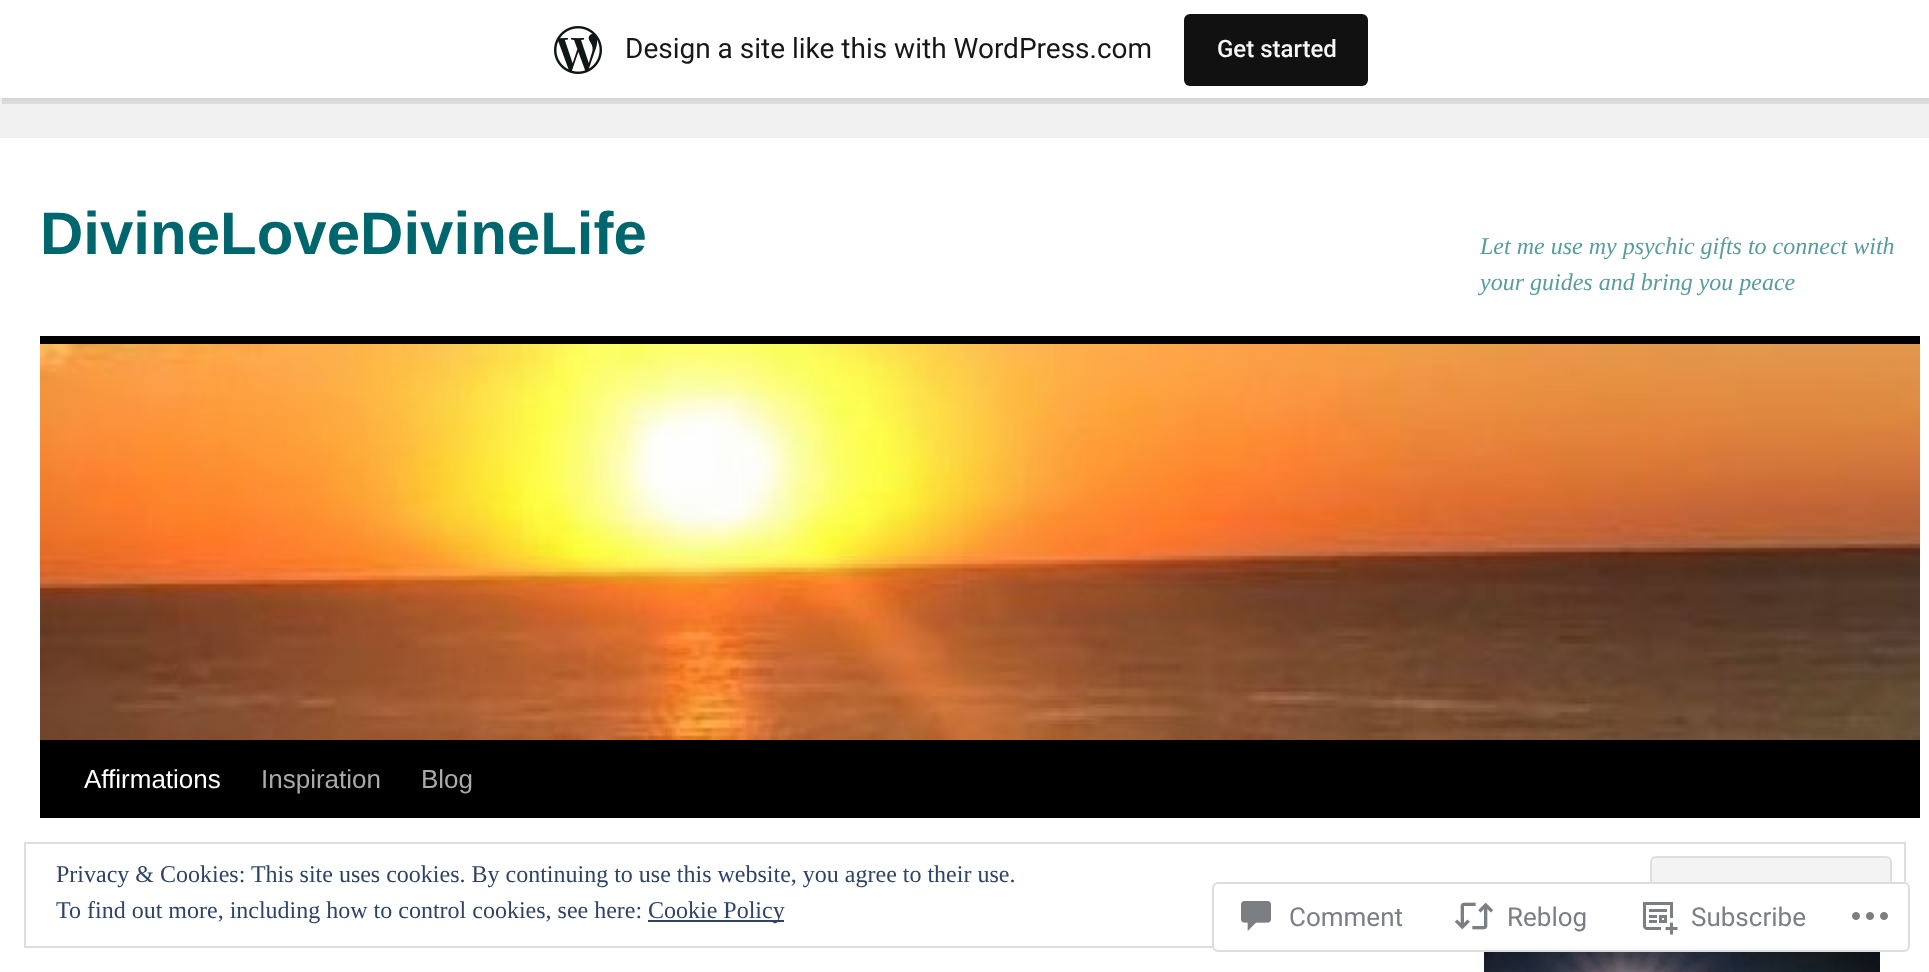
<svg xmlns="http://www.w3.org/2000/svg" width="1929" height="972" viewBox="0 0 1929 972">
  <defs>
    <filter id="blur1" x="-50%" y="-200%" width="200%" height="500%"><feGaussianBlur stdDeviation="2"/></filter>
  </defs>
  <rect width="100%" height="100%" fill="#f1f1f1"/>
  <rect x="0" y="2" width="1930" height="98" fill="#000000" fill-opacity="0.05" filter="url(#blur1)"/>
  <path d="M2 98V104H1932V6H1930V98Z" fill="#000000" fill-opacity="0.08"/>
  <rect x="0" y="0" width="1929" height="98" fill="#ffffff"/>
  <image x="554" y="26" width="48" height="48" href="img1.png"/>
  <text x="625" y="58" font-family="Roboto" font-size="28" fill="#171717">Design a site like this with WordPress.com</text>
  <rect x="1184" y="14" width="184" height="72" rx="6" fill="#111111"/>
  <text x="1217" y="57" font-family="Roboto" font-size="24" font-weight="500" fill="#f6f7f7">Get started</text>
  <rect x="0" y="138" width="1929" height="834" fill="#ffffff"/>
  <text x="40" y="254" font-family="Liberation Sans" font-size="60" font-weight="bold" fill="#00666d">DivineLoveDivineLife</text>
  <text x="1480" y="254" font-family="Liberation Serif" font-size="24" font-style="italic" fill="#599ca0">Let me use my psychic gifts to connect with</text>
  <text x="1480" y="290" font-family="Liberation Serif" font-size="24" font-style="italic" fill="#599ca0">your guides and bring you peace</text>
  <rect x="40" y="336" width="1880" height="8" fill="#000000"/>
  <rect x="40" y="740" width="1880" height="78" fill="#000000"/>
  <image x="40" y="344" width="1880" height="396" href="img2.png"/>
  <text x="84" y="788" font-family="Liberation Sans" font-size="26" fill="#ffffff">Affirmations</text>
  <text x="261" y="788" font-family="Liberation Sans" font-size="26" fill="#aaaaaa">Inspiration</text>
  <text x="421" y="788" font-family="Liberation Sans" font-size="26" fill="#aaaaaa">Blog</text>
  <image x="1484" y="948" width="396" height="24" href="img3.png"/>
  <rect x="25" y="843" width="1880" height="104" fill="none" stroke="#dedede" stroke-width="2"/>
  <text x="56" y="882" font-family="Liberation Serif" font-size="24" fill="#2e4467">Privacy &amp; Cookies: This site uses cookies. By continuing to use this website, you agree to their use.</text>
  <rect x="1651" y="857" width="240" height="76" rx="5" fill="#f3f3f3" stroke="#dedede" stroke-width="2"/>
  <text x="56" y="918" font-family="Liberation Serif" font-size="24" fill="#2e4467">To find out more, including how to control cookies, see here:</text>
  <rect x="648" y="920" width="136" height="2" fill="#2e4467"/>
  <text x="648" y="918" font-family="Liberation Serif" font-size="24" fill="#2e4467">Cookie Policy</text>
  <rect x="1212" y="882" width="698" height="70" rx="6" fill="#ffffff" fill-opacity="0.98"/>
  <rect x="1213" y="883" width="696" height="68" rx="5" fill="none" stroke="#dcdcde" stroke-opacity="0.98" stroke-width="2"/>
  <image x="1241" y="901" width="30" height="30" href="img4.png"/>
  <text x="1289" y="926" font-family="Roboto" font-size="26" fill="#7b7f85">Comment</text>
  <image x="1454" y="902" width="40" height="28" href="img5.png"/>
  <text x="1507" y="926" font-family="Roboto" font-size="26" fill="#7b7f85">Reblog</text>
  <image x="1643" y="902" width="35" height="33" href="img6.png"/>
  <text x="1691" y="926" font-family="Roboto" font-size="26" fill="#7b7f85">Subscribe</text>
  <image x="1852" y="912" width="36" height="8" href="img7.png"/>
</svg>
